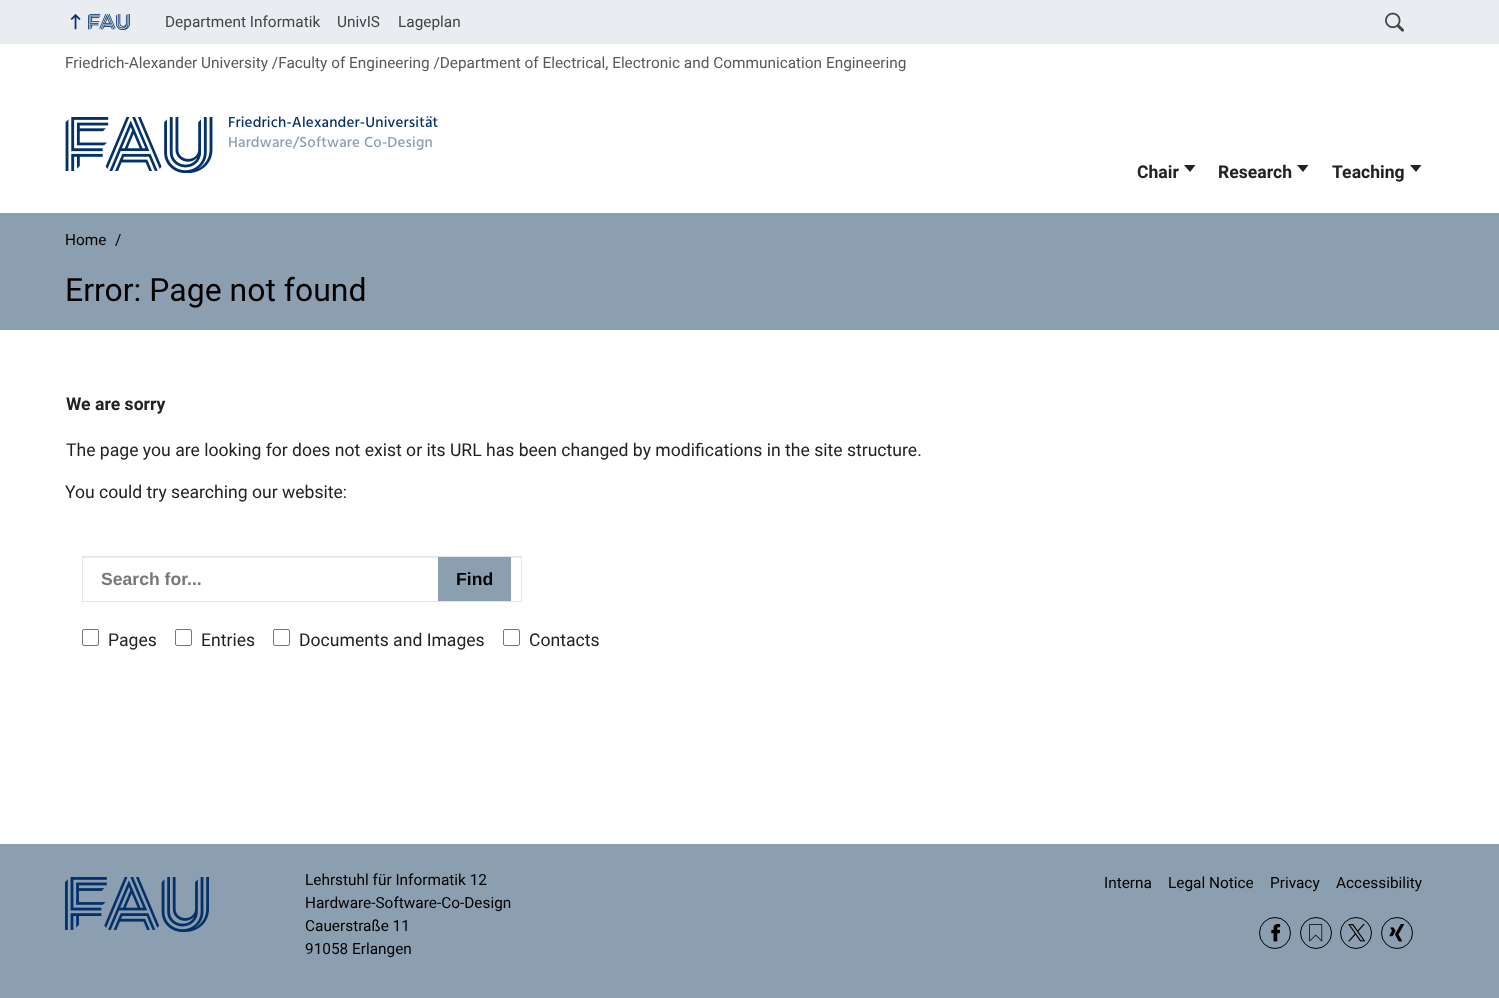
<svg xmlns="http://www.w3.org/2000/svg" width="1499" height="998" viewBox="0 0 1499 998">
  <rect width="100%" height="100%" fill="#ffffff"/>
  <rect x="0" y="0" width="1499" height="44" fill="#e9edf2"/>
  <image x="70" y="14" width="11" height="16" href="img1.png"/>
  <image x="88" y="14" width="42" height="16" href="img2.png"/>
  <text x="165" y="27" font-family="Roboto" font-size="15.4" fill="#444444">Department Informatik</text>
  <text x="337" y="27" font-family="Roboto" font-size="15.4" fill="#444444">UnivIS</text>
  <text x="398" y="27" font-family="Roboto" font-size="15.4" fill="#444444">Lageplan</text>
  <image x="1385" y="12" width="19" height="20" href="img3.png"/>
  <text x="65" y="68" font-family="Roboto" font-size="15.4" fill="#5b5858">Friedrich-Alexander University /Faculty of Engineering /Department of Electrical, Electronic and Communication Engineering</text>
  <image x="65" y="117" width="148" height="56" href="img4.png"/>
  <text x="228" y="127" font-family="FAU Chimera" font-size="15" font-weight="500" letter-spacing="0.2" fill="#04316a">Friedrich-Alexander-Universität</text>
  <text x="228" y="147" font-family="FAU Chimera" font-size="15" font-weight="500" letter-spacing="0.2" fill="#8c9fb1">Hardware/Software Co-Design</text>
  <text x="1137" y="178" font-family="Roboto" font-size="17.6" font-weight="bold" fill="#222222">Chair</text>
  <path d="M1184 165L1190 172L1195.5 165Z" fill="#222222"/>
  <text x="1218" y="178" font-family="Roboto" font-size="17.6" font-weight="bold" fill="#222222">Research</text>
  <path d="M1297 165L1303 172L1308.5 165Z" fill="#222222"/>
  <text x="1332" y="178" font-family="Roboto" font-size="17.6" font-weight="bold" fill="#222222">Teaching</text>
  <path d="M1410 165L1416 172L1421.5 165Z" fill="#222222"/>
  <rect x="0" y="213" width="1499" height="117" fill="#8c9fb1"/>
  <text x="65" y="245" font-family="Roboto" font-size="15.4" fill="#000000">Home</text>
  <text x="115" y="245" font-family="Roboto" font-size="15.4" fill="#000000">/</text>
  <text x="65" y="301" font-family="Roboto" font-size="32" fill="#000000">Error: Page not found</text>
  <text x="66" y="410" font-family="Roboto" font-size="17.6" font-weight="bold" fill="#222222">We are sorry</text>
  <text x="66" y="456" font-family="Roboto" font-size="17.6" fill="#222222">The page you are looking for does not exist or its URL has been changed by modifications in the site structure.</text>
  <text x="65" y="498" font-family="Roboto" font-size="17.6" fill="#222222">You could try searching our website:</text>
  <rect x="83" y="557" width="438" height="1" fill="#ececec"/>
  <rect x="82.5" y="556.5" width="439" height="45" fill="none" stroke="#dfe6ec"/>
  <text x="101" y="585" font-family="Liberation Sans" font-size="17.6" font-weight="bold" fill="#797676">Search for...</text>
  <rect x="438" y="557" width="73" height="44" fill="#8c9fb1"/>
  <text x="456" y="585" font-family="Liberation Sans" font-size="17.6" font-weight="bold" fill="#000000">Find</text>
  <rect x="82.5" y="629.5" width="16" height="16" rx="1.5" fill="none" stroke="#767676"/>
  <text x="108" y="646" font-family="Roboto" font-size="17.6" fill="#222222">Pages</text>
  <rect x="175.5" y="629.5" width="16" height="16" rx="1.5" fill="none" stroke="#767676"/>
  <text x="201" y="646" font-family="Roboto" font-size="17.6" fill="#222222">Entries</text>
  <rect x="273.5" y="629.5" width="16" height="16" rx="1.5" fill="none" stroke="#767676"/>
  <text x="299" y="646" font-family="Roboto" font-size="17.6" fill="#222222">Documents and Images</text>
  <rect x="503.5" y="629.5" width="16" height="16" rx="1.5" fill="none" stroke="#767676"/>
  <text x="529" y="646" font-family="Roboto" font-size="17.6" fill="#222222">Contacts</text>
  <rect x="0" y="844" width="1499" height="154" fill="#8c9fb1"/>
  <image x="65" y="877" width="144" height="55" href="img5.png"/>
  <text x="305" y="885" font-family="Roboto" font-size="15.4" fill="#000000">Lehrstuhl für Informatik 12</text>
  <text x="305" y="908" font-family="Roboto" font-size="15.4" fill="#000000">Hardware-Software-Co-Design</text>
  <text x="305" y="931" font-family="Roboto" font-size="15.4" fill="#000000">Cauerstraße 11</text>
  <text x="305" y="954" font-family="Roboto" font-size="15.4" fill="#000000">91058 Erlangen</text>
  <text x="1104" y="888" font-family="Roboto" font-size="15.4" fill="#000000">Interna</text>
  <text x="1168" y="888" font-family="Roboto" font-size="15.4" fill="#000000">Legal Notice</text>
  <text x="1270" y="888" font-family="Roboto" font-size="15.4" fill="#000000">Privacy</text>
  <text x="1336" y="888" font-family="Roboto" font-size="15.4" fill="#000000">Accessibility</text>
  <circle cx="1275" cy="933" r="15.5" fill="none" stroke="#000000"/>
  <image x="1271" y="924" width="10" height="18" href="img6.png"/>
  <circle cx="1316" cy="933" r="15.5" fill="none" stroke="#000000"/>
  <image x="1309" y="924" width="14" height="18" href="img7.png"/>
  <circle cx="1356" cy="933" r="15.5" fill="none" stroke="#000000"/>
  <image x="1348" y="924" width="17" height="18" href="img8.png"/>
  <circle cx="1397" cy="933" r="15.5" fill="none" stroke="#000000"/>
  <image x="1389" y="924" width="16" height="18" href="img9.png"/>
</svg>
